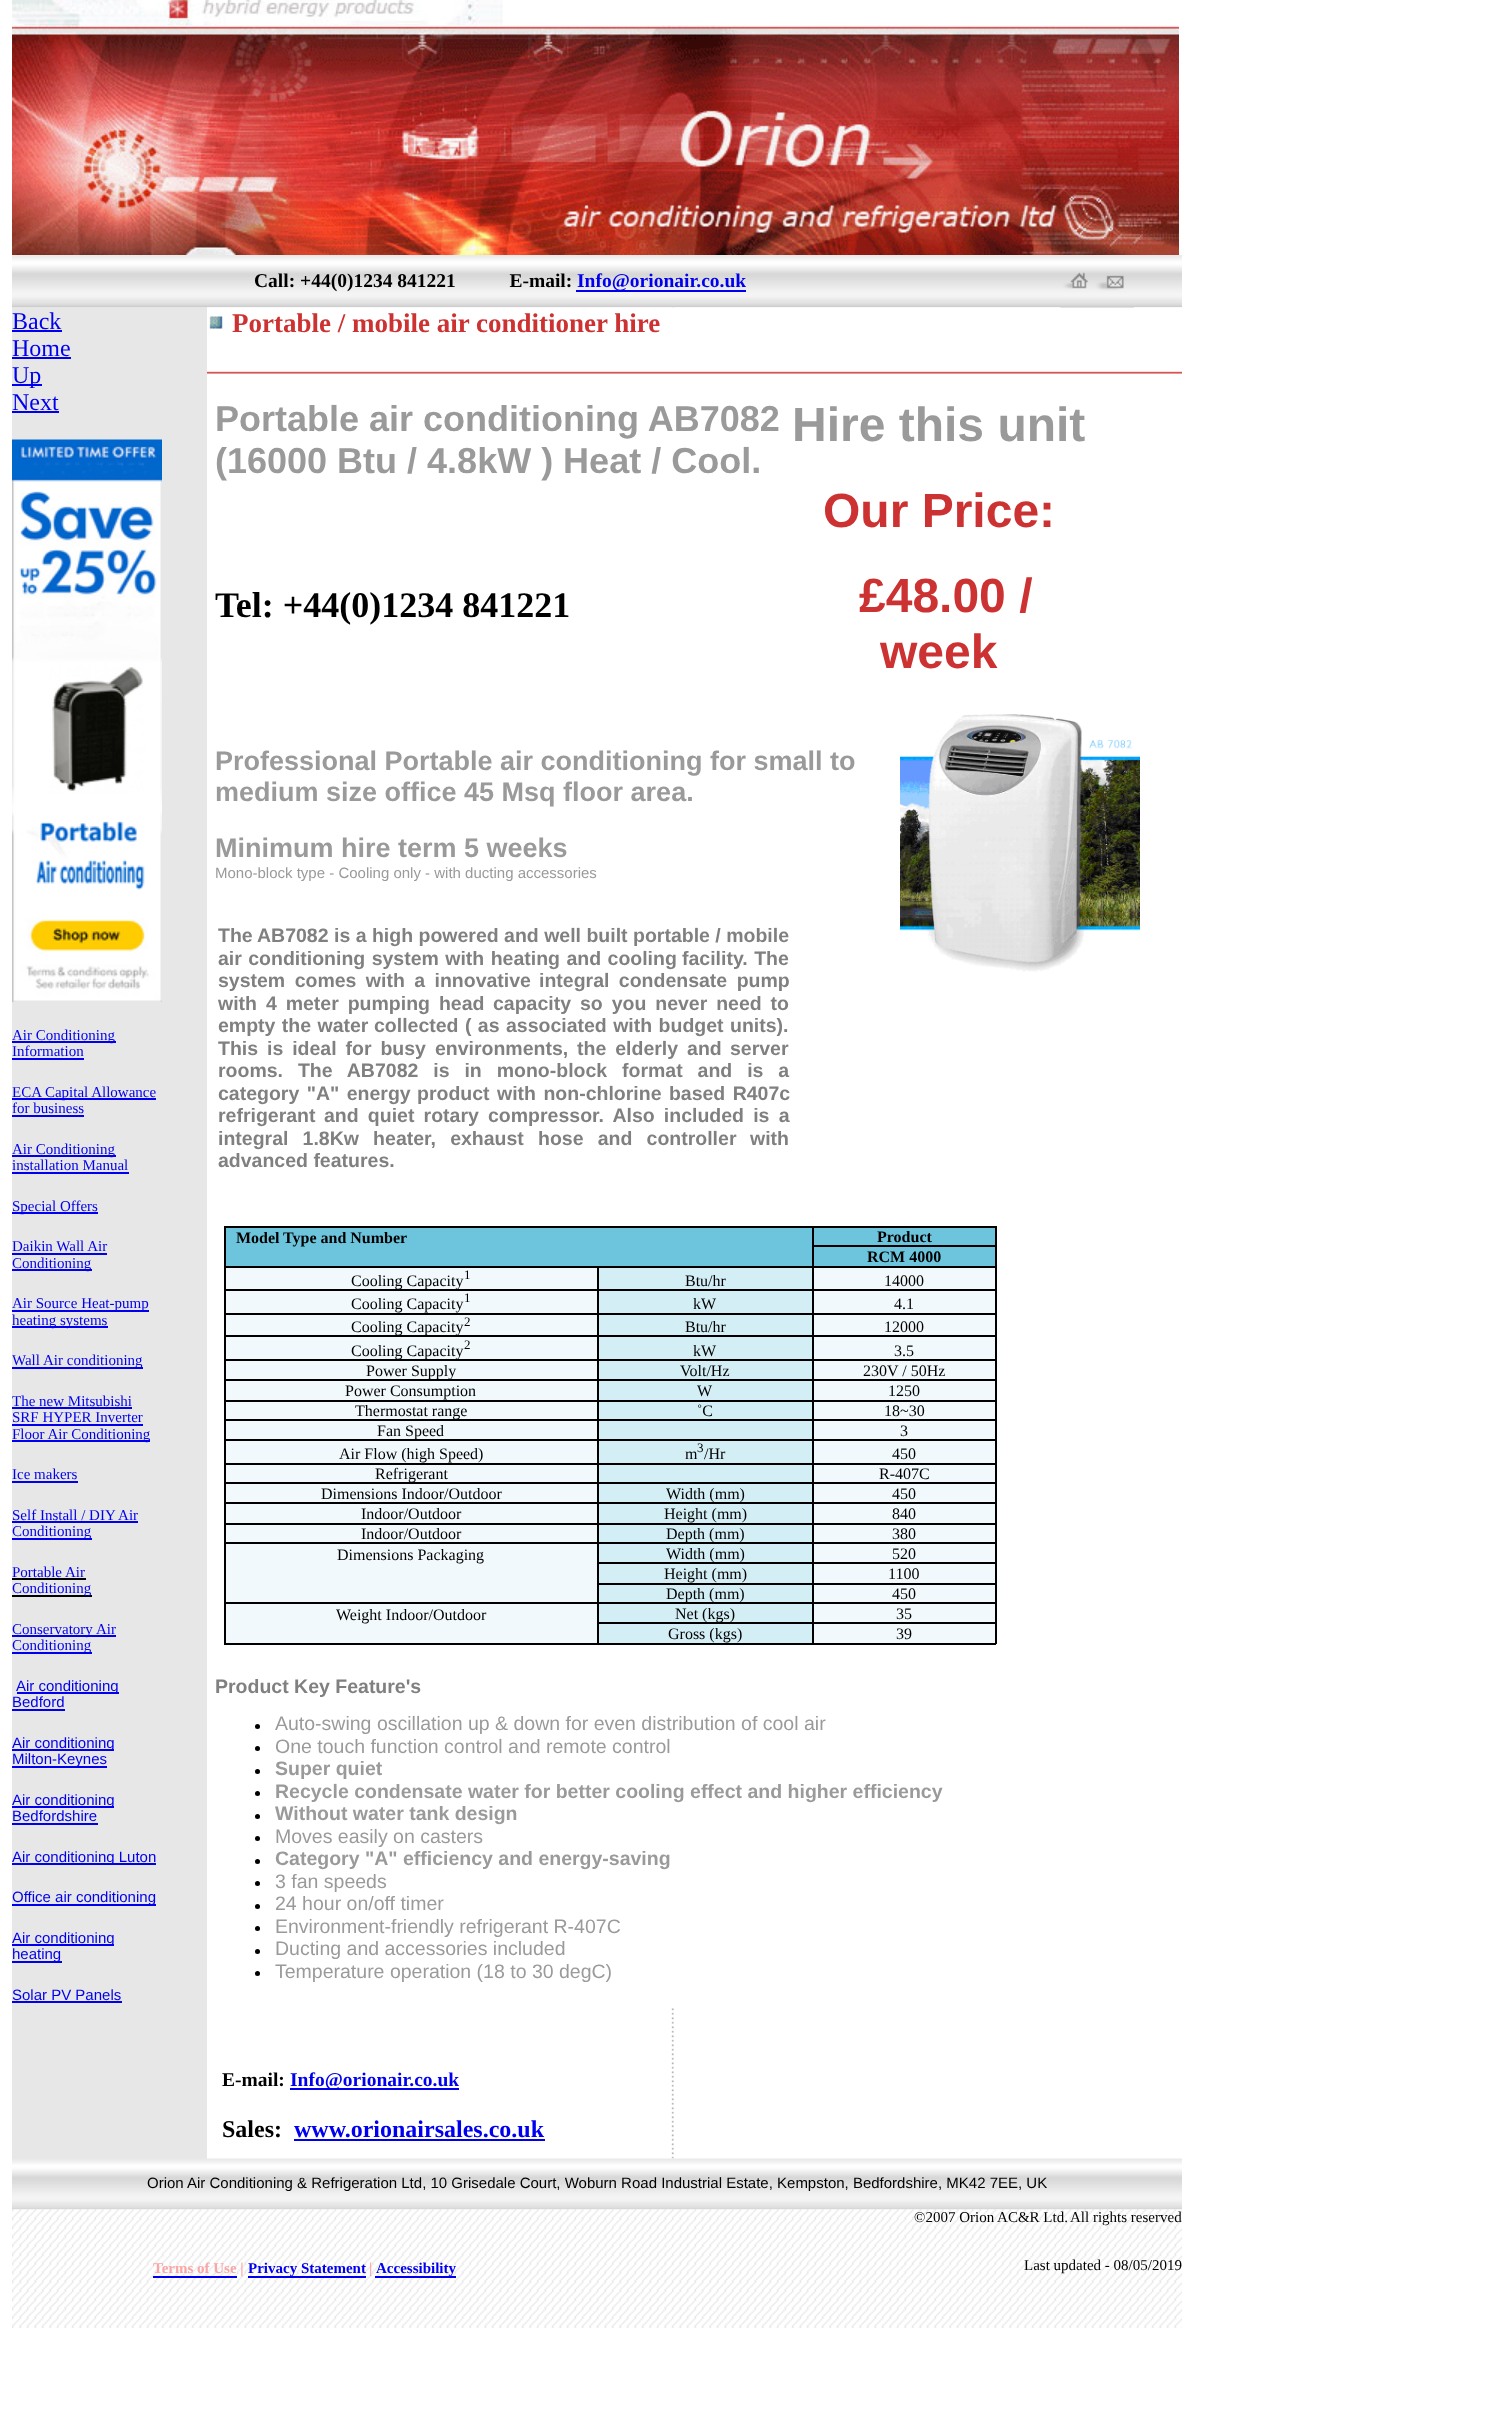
<svg xmlns="http://www.w3.org/2000/svg" width="1492" height="2411" viewBox="0 0 1492 2411">
  <rect width="100%" height="100%" fill="#ffffff"/>
  <image x="12" y="0" width="491" height="26" href="img1.png"/>
  <image x="12" y="25" width="1167" height="230" href="img2.png"/>
  <image x="12" y="255" width="1170" height="53" href="img3.png"/>
  <text x="254" y="287" font-family="Liberation Serif" font-size="19.5" font-weight="bold" fill="#000000" xml:space="preserve">Call: +44(0)1234 841221           E-mail:</text>
  <rect x="576" y="290" width="170" height="2" fill="#0000ee"/>
  <text x="577" y="287" font-family="Liberation Serif" font-size="19.5" font-weight="bold" fill="#0000ee">Info@orionair.co.uk</text>
  <image x="207" y="307" width="975" height="1852" href="img7.png"/>
  <image x="207" y="307" width="975" height="83" href="img8.png"/>
  <image x="1060" y="272" width="34" height="36" href="img4.png"/>
  <image x="1093" y="275" width="41" height="33" href="img5.png"/>
  <rect x="12" y="308" width="195" height="1851" fill="#e7e7e7"/>
  <text x="12" y="329" font-family="Liberation Serif" font-size="24" fill="#0000ee">Back</text>
  <rect x="12" y="330" width="50" height="2" fill="#0000ee"/>
  <text x="12" y="356" font-family="Liberation Serif" font-size="24" fill="#0000ee">Home</text>
  <rect x="12" y="357" width="59" height="2" fill="#0000ee"/>
  <rect x="12" y="384" width="30" height="2" fill="#0000ee"/>
  <text x="12" y="383" font-family="Liberation Serif" font-size="24" fill="#0000ee">Up</text>
  <text x="12" y="410" font-family="Liberation Serif" font-size="24" fill="#0000ee">Next</text>
  <rect x="12" y="411" width="47" height="2" fill="#0000ee"/>
  <image x="12" y="439" width="150" height="563" href="img6.png"/>
  <rect x="12" y="1041" width="104" height="2" fill="#0000ee"/>
  <text x="12" y="1040" font-family="Liberation Serif" font-size="15" fill="#0000ee">Air Conditioning</text>
  <text x="12" y="1056" font-family="Liberation Serif" font-size="15" fill="#0000ee">Information</text>
  <rect x="12" y="1058" width="72" height="2" fill="#0000ee"/>
  <rect x="12" y="1098" width="144" height="2" fill="#0000ee"/>
  <text x="12" y="1097" font-family="Liberation Serif" font-size="15" fill="#0000ee">ECA Capital Allowance</text>
  <text x="12" y="1113" font-family="Liberation Serif" font-size="15" fill="#0000ee">for business</text>
  <rect x="12" y="1115" width="72" height="2" fill="#0000ee"/>
  <rect x="12" y="1155" width="104" height="2" fill="#0000ee"/>
  <text x="12" y="1154" font-family="Liberation Serif" font-size="15" fill="#0000ee">Air Conditioning</text>
  <text x="12" y="1170" font-family="Liberation Serif" font-size="15" fill="#0000ee">installation Manual</text>
  <rect x="12" y="1172" width="117" height="2" fill="#0000ee"/>
  <rect x="12" y="1212" width="86" height="2" fill="#0000ee"/>
  <text x="12" y="1211" font-family="Liberation Serif" font-size="15" fill="#0000ee">Special Offers</text>
  <text x="12" y="1251" font-family="Liberation Serif" font-size="15" fill="#0000ee">Daikin Wall Air</text>
  <rect x="12" y="1253" width="95" height="2" fill="#0000ee"/>
  <rect x="12" y="1269" width="80" height="2" fill="#0000ee"/>
  <text x="12" y="1268" font-family="Liberation Serif" font-size="15" fill="#0000ee">Conditioning</text>
  <rect x="12" y="1310" width="137" height="2" fill="#0000ee"/>
  <text x="12" y="1308" font-family="Liberation Serif" font-size="15" fill="#0000ee">Air Source Heat-pump</text>
  <rect x="12" y="1326" width="96" height="2" fill="#0000ee"/>
  <text x="12" y="1325" font-family="Liberation Serif" font-size="15" fill="#0000ee">heating systems</text>
  <text x="12" y="1365" font-family="Liberation Serif" font-size="15" fill="#0000ee">Wall</text>
  <rect x="12" y="1367" width="131" height="2" fill="#0000ee"/>
  <text x="43" y="1365" font-family="Liberation Serif" font-size="15" fill="#0000ee">Air conditioning</text>
  <text x="12" y="1406" font-family="Liberation Serif" font-size="15" fill="#0000ee">The new Mitsubishi</text>
  <rect x="12" y="1407" width="120" height="2" fill="#0000ee"/>
  <text x="12" y="1422" font-family="Liberation Serif" font-size="15" fill="#0000ee">SRF HYPER Inverter</text>
  <rect x="12" y="1424" width="131" height="2" fill="#0000ee"/>
  <rect x="12" y="1440" width="138" height="2" fill="#0000ee"/>
  <text x="12" y="1439" font-family="Liberation Serif" font-size="15" fill="#0000ee">Floor Air Conditioning</text>
  <text x="12" y="1479" font-family="Liberation Serif" font-size="15" fill="#0000ee">Ice makers</text>
  <rect x="12" y="1481" width="66" height="2" fill="#0000ee"/>
  <text x="12" y="1520" font-family="Liberation Serif" font-size="15" fill="#0000ee">Self Install / DIY Air</text>
  <rect x="12" y="1521" width="126" height="2" fill="#0000ee"/>
  <rect x="12" y="1538" width="80" height="2" fill="#0000ee"/>
  <text x="12" y="1536" font-family="Liberation Serif" font-size="15" fill="#0000ee">Conditioning</text>
  <text x="12" y="1577" font-family="Liberation Serif" font-size="15" fill="#0000ee">Portable</text>
  <rect x="12" y="1578" width="74" height="2" fill="#000000"/>
  <text x="65" y="1577" font-family="Liberation Serif" font-size="15" fill="#0000ee">Air</text>
  <rect x="12" y="1595" width="80" height="2" fill="#000000"/>
  <text x="12" y="1593" font-family="Liberation Serif" font-size="15" fill="#0000ee">Conditioning</text>
  <rect x="12" y="1635" width="104" height="2" fill="#0000ee"/>
  <text x="12" y="1634" font-family="Liberation Serif" font-size="15" fill="#0000ee">Conservatory</text>
  <text x="96" y="1634" font-family="Liberation Serif" font-size="15" fill="#0000ee">Air</text>
  <rect x="12" y="1652" width="80" height="2" fill="#0000ee"/>
  <text x="12" y="1650" font-family="Liberation Serif" font-size="15" fill="#0000ee">Conditioning</text>
  <rect x="17" y="1692" width="102" height="2" fill="#0000ee"/>
  <text x="16" y="1691" font-family="Liberation Sans" font-size="15" fill="#0000ee">Air conditioning</text>
  <text x="12" y="1707" font-family="Liberation Sans" font-size="15" fill="#0000ee">Bedford</text>
  <rect x="12" y="1709" width="53" height="2" fill="#0000ee"/>
  <rect x="12" y="1749" width="102" height="2" fill="#0000ee"/>
  <text x="12" y="1748" font-family="Liberation Sans" font-size="15" fill="#0000ee">Air conditioning</text>
  <rect x="12" y="1766" width="95" height="2" fill="#0000ee"/>
  <text x="12" y="1764" font-family="Liberation Sans" font-size="15" fill="#0000ee">Milton-Keynes</text>
  <rect x="12" y="1806" width="102" height="2" fill="#0000ee"/>
  <text x="12" y="1805" font-family="Liberation Sans" font-size="15" fill="#0000ee">Air conditioning</text>
  <text x="12" y="1821" font-family="Liberation Sans" font-size="15" fill="#0000ee">Bedfordshire</text>
  <rect x="12" y="1823" width="86" height="2" fill="#0000ee"/>
  <rect x="12" y="1863" width="144" height="2" fill="#0000ee"/>
  <text x="12" y="1862" font-family="Liberation Sans" font-size="15" fill="#0000ee">Air conditioning Luton</text>
  <rect x="12" y="1904" width="144" height="2" fill="#0000ee"/>
  <text x="12" y="1902" font-family="Liberation Sans" font-size="15" fill="#0000ee">Office air conditioning</text>
  <rect x="12" y="1944" width="102" height="2" fill="#0000ee"/>
  <text x="12" y="1943" font-family="Liberation Sans" font-size="15" fill="#0000ee">Air conditioning</text>
  <rect x="12" y="1961" width="50" height="2" fill="#0000ee"/>
  <text x="12" y="1959" font-family="Liberation Sans" font-size="15" fill="#0000ee">heating</text>
  <text x="12" y="2000" font-family="Liberation Sans" font-size="15" fill="#0000ee">Solar PV Panels</text>
  <rect x="12" y="2001" width="110" height="2" fill="#0000ee"/>
  <image x="209" y="316" width="14" height="13" href="img9.png"/>
  <text x="232" y="332" font-family="Liberation Serif" font-size="27" font-weight="bold" fill="#cd3232">Portable / mobile air conditioner hire</text>
  <rect x="671" y="390" width="3" height="1616" fill="#ffffff"/>
  <text x="215" y="431" font-family="Liberation Sans" font-size="36" font-weight="bold" fill="#9a9a9a">Portable air conditioning AB7082</text>
  <text x="215" y="473" font-family="Liberation Sans" font-size="36" font-weight="bold" fill="#9a9a9a">(16000 Btu / 4.8kW ) Heat / Cool.</text>
  <text x="215" y="617" font-family="Liberation Serif" font-size="36" font-weight="bold" fill="#000000">Tel: +44(0)1234 841221</text>
  <text x="792" y="441" font-family="Liberation Sans" font-size="48" font-weight="bold" fill="#9a9a9a">Hire this unit</text>
  <text x="823" y="527" font-family="Liberation Sans" font-size="48" font-weight="bold" fill="#cd3232">Our Price:</text>
  <text x="859" y="612" font-family="Liberation Sans" font-size="48" font-weight="bold" fill="#cd3232">£48.00 /</text>
  <text x="880" y="668" font-family="Liberation Sans" font-size="48" font-weight="bold" fill="#cd3232">week</text>
  <text x="215" y="770" font-family="Liberation Sans" font-size="27" font-weight="bold" fill="#9a9a9a">Professional Portable air conditioning for small to</text>
  <text x="215" y="801" font-family="Liberation Sans" font-size="27" font-weight="bold" fill="#9a9a9a">medium size office 45 Msq floor area.</text>
  <image x="900" y="714" width="240" height="258" href="img10.png"/>
  <text x="215" y="857" font-family="Liberation Sans" font-size="27" font-weight="bold" fill="#9a9a9a">Minimum hire term 5 weeks</text>
  <text x="215" y="878" font-family="Liberation Sans" font-size="15" fill="#9a9a9a">Mono-block type - Cooling only - with ducting accessories</text>
  <text x="218" y="942" font-family="Liberation Sans" font-size="19.5" font-weight="bold" fill="#808080">The</text>
  <text x="257" y="942" font-family="Liberation Sans" font-size="19.5" font-weight="bold" fill="#808080">AB7082 is a high powered and well built portable / mobile</text>
  <text x="218" y="965" word-spacing="1" font-family="Liberation Sans" font-size="19.5" font-weight="bold" fill="#808080">air conditioning system with heating and cooling</text>
  <text x="682" y="965" word-spacing="1" font-family="Liberation Sans" font-size="19.5" font-weight="bold" fill="#808080">facility. The</text>
  <text x="218" y="987" word-spacing="4" font-family="Liberation Sans" font-size="19.5" font-weight="bold" fill="#808080">system comes with a innovative</text>
  <text x="539" y="987" word-spacing="4" font-family="Liberation Sans" font-size="19.5" font-weight="bold" fill="#808080">integral condensate pump</text>
  <text x="218" y="1010" word-spacing="3.5" font-family="Liberation Sans" font-size="19.5" font-weight="bold" fill="#808080">with 4 meter pumping head</text>
  <text x="493" y="1010" word-spacing="3.5" font-family="Liberation Sans" font-size="19.5" font-weight="bold" fill="#808080">capacity so you never need to</text>
  <text x="218" y="1032" word-spacing="1" font-family="Liberation Sans" font-size="19.5" font-weight="bold" fill="#808080">empty the water</text>
  <text x="374" y="1032" word-spacing="1" font-family="Liberation Sans" font-size="19.5" font-weight="bold" fill="#808080">collected ( as associated with budget units).</text>
  <text x="218" y="1055" font-family="Liberation Sans" font-size="19.5" font-weight="bold" fill="#808080">This</text>
  <text x="267" y="1055" word-spacing="3.5" font-family="Liberation Sans" font-size="19.5" font-weight="bold" fill="#808080">is ideal for busy environments, the elderly and</text>
  <text x="730" y="1055" font-family="Liberation Sans" font-size="19.5" font-weight="bold" fill="#808080">server</text>
  <text x="218" y="1077" word-spacing="9.5" font-family="Liberation Sans" font-size="19.5" font-weight="bold" fill="#808080">rooms. The AB7082 is in mono-block</text>
  <text x="622" y="1077" word-spacing="9.5" font-family="Liberation Sans" font-size="19.5" font-weight="bold" fill="#808080">format and is a</text>
  <text x="218" y="1100" word-spacing="2" font-family="Liberation Sans" font-size="19.5" font-weight="bold" fill="#808080">category "A" energy</text>
  <text x="417" y="1100" word-spacing="2" font-family="Liberation Sans" font-size="19.5" font-weight="bold" fill="#808080">product with non-chlorine based R407c</text>
  <text x="218" y="1122" font-family="Liberation Sans" font-size="19.5" font-weight="bold" fill="#808080">refrigerant</text>
  <text x="324" y="1122" word-spacing="3.75" font-family="Liberation Sans" font-size="19.5" font-weight="bold" fill="#808080">and quiet rotary compressor. Also included is a</text>
  <text x="218" y="1145" word-spacing="8.75" font-family="Liberation Sans" font-size="19.5" font-weight="bold" fill="#808080">integral 1.8Kw heater, exhaust hose and controller</text>
  <text x="750" y="1145" font-family="Liberation Sans" font-size="19.5" font-weight="bold" fill="#808080">with</text>
  <text x="218" y="1167" font-family="Liberation Sans" font-size="19.5" font-weight="bold" fill="#808080">advanced features.</text>
  <rect x="226" y="1228" width="586" height="19" fill="#6dc5dd"/>
  <rect x="224" y="1226" width="772" height="2" fill="#000000"/>
  <rect x="812" y="1245" width="184" height="2" fill="#000000"/>
  <rect x="995" y="1266" width="2" height="378" fill="#000000"/>
  <rect x="995" y="1245" width="2" height="23" fill="#000000"/>
  <rect x="812" y="1643" width="184" height="2" fill="#000000"/>
  <rect x="812" y="1622" width="2" height="22" fill="#000000"/>
  <rect x="812" y="1622" width="184" height="2" fill="#000000"/>
  <rect x="812" y="1602" width="2" height="21" fill="#000000"/>
  <rect x="812" y="1602" width="184" height="2" fill="#000000"/>
  <rect x="812" y="1583" width="2" height="21" fill="#000000"/>
  <rect x="812" y="1583" width="184" height="2" fill="#000000"/>
  <rect x="812" y="1562" width="2" height="22" fill="#000000"/>
  <rect x="812" y="1562" width="184" height="2" fill="#000000"/>
  <rect x="812" y="1542" width="2" height="21" fill="#000000"/>
  <rect x="812" y="1542" width="184" height="2" fill="#000000"/>
  <rect x="812" y="1523" width="2" height="21" fill="#000000"/>
  <rect x="812" y="1523" width="184" height="2" fill="#000000"/>
  <rect x="812" y="1502" width="2" height="22" fill="#000000"/>
  <rect x="812" y="1502" width="184" height="2" fill="#000000"/>
  <rect x="812" y="1482" width="2" height="21" fill="#000000"/>
  <rect x="812" y="1482" width="184" height="2" fill="#000000"/>
  <rect x="812" y="1463" width="2" height="21" fill="#000000"/>
  <rect x="812" y="1463" width="184" height="2" fill="#000000"/>
  <rect x="812" y="1439" width="2" height="25" fill="#000000"/>
  <rect x="812" y="1439" width="184" height="2" fill="#000000"/>
  <rect x="812" y="1419" width="2" height="21" fill="#000000"/>
  <rect x="812" y="1419" width="184" height="2" fill="#000000"/>
  <rect x="812" y="1400" width="2" height="21" fill="#000000"/>
  <rect x="812" y="1400" width="184" height="2" fill="#000000"/>
  <rect x="812" y="1379" width="2" height="22" fill="#000000"/>
  <rect x="812" y="1379" width="184" height="2" fill="#000000"/>
  <rect x="812" y="1359" width="2" height="21" fill="#000000"/>
  <rect x="812" y="1359" width="184" height="2" fill="#000000"/>
  <rect x="812" y="1335" width="2" height="26" fill="#000000"/>
  <rect x="812" y="1335" width="184" height="2" fill="#000000"/>
  <rect x="812" y="1313" width="2" height="24" fill="#000000"/>
  <rect x="812" y="1313" width="184" height="2" fill="#000000"/>
  <rect x="812" y="1289" width="2" height="25" fill="#000000"/>
  <rect x="812" y="1289" width="184" height="2" fill="#000000"/>
  <rect x="812" y="1266" width="2" height="24" fill="#000000"/>
  <rect x="812" y="1266" width="184" height="2" fill="#000000"/>
  <rect x="812" y="1245" width="2" height="23" fill="#000000"/>
  <rect x="597" y="1643" width="216" height="2" fill="#000000"/>
  <rect x="597" y="1622" width="2" height="22" fill="#000000"/>
  <rect x="597" y="1622" width="216" height="2" fill="#000000"/>
  <rect x="597" y="1602" width="2" height="21" fill="#000000"/>
  <rect x="597" y="1602" width="216" height="2" fill="#000000"/>
  <rect x="597" y="1583" width="2" height="21" fill="#000000"/>
  <rect x="597" y="1583" width="216" height="2" fill="#000000"/>
  <rect x="597" y="1562" width="2" height="22" fill="#000000"/>
  <rect x="597" y="1562" width="216" height="2" fill="#000000"/>
  <rect x="597" y="1542" width="2" height="21" fill="#000000"/>
  <rect x="597" y="1542" width="216" height="2" fill="#000000"/>
  <rect x="597" y="1523" width="2" height="21" fill="#000000"/>
  <rect x="597" y="1523" width="216" height="2" fill="#000000"/>
  <rect x="597" y="1502" width="2" height="22" fill="#000000"/>
  <rect x="597" y="1502" width="216" height="2" fill="#000000"/>
  <rect x="597" y="1482" width="2" height="21" fill="#000000"/>
  <rect x="597" y="1482" width="216" height="2" fill="#000000"/>
  <rect x="597" y="1463" width="2" height="21" fill="#000000"/>
  <rect x="597" y="1463" width="216" height="2" fill="#000000"/>
  <rect x="597" y="1439" width="2" height="25" fill="#000000"/>
  <rect x="597" y="1439" width="216" height="2" fill="#000000"/>
  <rect x="597" y="1419" width="2" height="21" fill="#000000"/>
  <rect x="597" y="1419" width="216" height="2" fill="#000000"/>
  <rect x="597" y="1400" width="2" height="21" fill="#000000"/>
  <rect x="597" y="1400" width="216" height="2" fill="#000000"/>
  <rect x="597" y="1379" width="2" height="22" fill="#000000"/>
  <rect x="597" y="1379" width="216" height="2" fill="#000000"/>
  <rect x="597" y="1359" width="2" height="21" fill="#000000"/>
  <rect x="597" y="1359" width="216" height="2" fill="#000000"/>
  <rect x="597" y="1335" width="2" height="26" fill="#000000"/>
  <rect x="597" y="1335" width="216" height="2" fill="#000000"/>
  <rect x="597" y="1313" width="2" height="24" fill="#000000"/>
  <rect x="597" y="1313" width="216" height="2" fill="#000000"/>
  <rect x="597" y="1289" width="2" height="25" fill="#000000"/>
  <rect x="597" y="1289" width="216" height="2" fill="#000000"/>
  <rect x="597" y="1266" width="2" height="24" fill="#000000"/>
  <rect x="224" y="1643" width="375" height="2" fill="#000000"/>
  <rect x="224" y="1602" width="2" height="42" fill="#000000"/>
  <rect x="224" y="1602" width="375" height="2" fill="#000000"/>
  <rect x="224" y="1542" width="2" height="62" fill="#000000"/>
  <rect x="224" y="1542" width="375" height="2" fill="#000000"/>
  <rect x="224" y="1523" width="2" height="21" fill="#000000"/>
  <rect x="224" y="1523" width="375" height="2" fill="#000000"/>
  <rect x="224" y="1502" width="2" height="22" fill="#000000"/>
  <rect x="224" y="1502" width="375" height="2" fill="#000000"/>
  <rect x="224" y="1482" width="2" height="21" fill="#000000"/>
  <rect x="224" y="1482" width="375" height="2" fill="#000000"/>
  <rect x="224" y="1463" width="2" height="21" fill="#000000"/>
  <rect x="224" y="1463" width="375" height="2" fill="#000000"/>
  <rect x="224" y="1439" width="2" height="25" fill="#000000"/>
  <rect x="224" y="1439" width="375" height="2" fill="#000000"/>
  <rect x="224" y="1419" width="2" height="21" fill="#000000"/>
  <rect x="224" y="1419" width="375" height="2" fill="#000000"/>
  <rect x="224" y="1400" width="2" height="21" fill="#000000"/>
  <rect x="224" y="1400" width="375" height="2" fill="#000000"/>
  <rect x="224" y="1379" width="2" height="22" fill="#000000"/>
  <rect x="224" y="1379" width="375" height="2" fill="#000000"/>
  <rect x="224" y="1359" width="2" height="21" fill="#000000"/>
  <rect x="224" y="1359" width="375" height="2" fill="#000000"/>
  <rect x="224" y="1335" width="2" height="26" fill="#000000"/>
  <rect x="224" y="1335" width="375" height="2" fill="#000000"/>
  <rect x="224" y="1313" width="2" height="24" fill="#000000"/>
  <rect x="224" y="1313" width="375" height="2" fill="#000000"/>
  <rect x="224" y="1289" width="2" height="25" fill="#000000"/>
  <rect x="224" y="1289" width="375" height="2" fill="#000000"/>
  <rect x="224" y="1266" width="2" height="24" fill="#000000"/>
  <rect x="224" y="1266" width="589" height="2" fill="#000000"/>
  <rect x="224" y="1245" width="2" height="23" fill="#000000"/>
  <rect x="224" y="1226" width="2" height="21" fill="#000000"/>
  <text x="236" y="1243" font-family="Liberation Serif" font-size="16" font-weight="bold" fill="#000000">Model</text>
  <text x="283" y="1243" font-family="Liberation Serif" font-size="16" font-weight="bold" fill="#000000">Type and Number</text>
  <rect x="812" y="1226" width="2" height="21" fill="#000000"/>
  <rect x="814" y="1228" width="181" height="17" fill="#6dc5dd"/>
  <rect x="995" y="1226" width="2" height="21" fill="#000000"/>
  <text x="877" y="1242" font-family="Liberation Serif" font-size="16" font-weight="bold" fill="#000000">Product</text>
  <rect x="226" y="1247" width="586" height="19" fill="#6dc5dd"/>
  <rect x="814" y="1247" width="181" height="19" fill="#6dc5dd"/>
  <text x="867" y="1262" font-family="Liberation Serif" font-size="16" font-weight="bold" fill="#000000">RCM 4000</text>
  <rect x="226" y="1268" width="371" height="21" fill="#f1f9fc"/>
  <text x="351" y="1286" font-family="Liberation Serif" font-size="16" fill="#000000">Cooling Capacity</text>
  <text x="464" y="1279" font-family="Liberation Serif" font-size="13" fill="#000000">1</text>
  <rect x="599" y="1268" width="213" height="21" fill="#d3eef5"/>
  <text x="685" y="1286" font-family="Liberation Serif" font-size="16" fill="#000000">Btu/hr</text>
  <rect x="814" y="1268" width="181" height="21" fill="#f1f9fc"/>
  <text x="884" y="1286" font-family="Liberation Serif" font-size="16" fill="#000000">14000</text>
  <rect x="226" y="1291" width="371" height="22" fill="#f1f9fc"/>
  <text x="351" y="1309" font-family="Liberation Serif" font-size="16" fill="#000000">Cooling Capacity</text>
  <text x="464" y="1302" font-family="Liberation Serif" font-size="13" fill="#000000">1</text>
  <rect x="599" y="1291" width="213" height="22" fill="#d3eef5"/>
  <text x="693" y="1309" font-family="Liberation Serif" font-size="16" fill="#000000">kW</text>
  <rect x="814" y="1291" width="181" height="22" fill="#f1f9fc"/>
  <text x="894" y="1309" font-family="Liberation Serif" font-size="16" fill="#000000">4.1</text>
  <rect x="226" y="1315" width="371" height="20" fill="#f1f9fc"/>
  <text x="351" y="1332" font-family="Liberation Serif" font-size="16" fill="#000000">Cooling Capacity</text>
  <text x="464" y="1326" font-family="Liberation Serif" font-size="13" fill="#000000">2</text>
  <rect x="599" y="1315" width="213" height="20" fill="#d3eef5"/>
  <text x="685" y="1332" font-family="Liberation Serif" font-size="16" fill="#000000">Btu/hr</text>
  <rect x="814" y="1315" width="181" height="20" fill="#f1f9fc"/>
  <text x="884" y="1332" font-family="Liberation Serif" font-size="16" fill="#000000">12000</text>
  <rect x="226" y="1337" width="371" height="22" fill="#f1f9fc"/>
  <text x="351" y="1356" font-family="Liberation Serif" font-size="16" fill="#000000">Cooling Capacity</text>
  <text x="464" y="1349" font-family="Liberation Serif" font-size="13" fill="#000000">2</text>
  <rect x="599" y="1337" width="213" height="22" fill="#d3eef5"/>
  <text x="693" y="1356" font-family="Liberation Serif" font-size="16" fill="#000000">kW</text>
  <rect x="814" y="1337" width="181" height="22" fill="#f1f9fc"/>
  <text x="894" y="1356" font-family="Liberation Serif" font-size="16" fill="#000000">3.5</text>
  <rect x="226" y="1361" width="371" height="18" fill="#f1f9fc"/>
  <text x="366" y="1376" font-family="Liberation Serif" font-size="16" fill="#000000">Power Supply</text>
  <rect x="599" y="1361" width="213" height="18" fill="#d3eef5"/>
  <text x="680" y="1376" font-family="Liberation Serif" font-size="16" fill="#000000">Volt/Hz</text>
  <rect x="814" y="1361" width="181" height="18" fill="#f1f9fc"/>
  <text x="863" y="1376" font-family="Liberation Serif" font-size="16" fill="#000000">230V / 50Hz</text>
  <rect x="226" y="1381" width="371" height="19" fill="#f1f9fc"/>
  <text x="345" y="1396" font-family="Liberation Serif" font-size="16" fill="#000000">Power Consumption</text>
  <rect x="599" y="1381" width="213" height="19" fill="#d3eef5"/>
  <text x="697" y="1396" font-family="Liberation Serif" font-size="16" fill="#000000">W</text>
  <rect x="814" y="1381" width="181" height="19" fill="#f1f9fc"/>
  <text x="888" y="1396" font-family="Liberation Serif" font-size="16" fill="#000000">1250</text>
  <rect x="226" y="1402" width="371" height="17" fill="#f1f9fc"/>
  <text x="355" y="1416" font-family="Liberation Serif" font-size="16" fill="#000000">Thermostat range</text>
  <rect x="599" y="1402" width="213" height="17" fill="#d3eef5"/>
  <text x="697" y="1416" font-family="Liberation Serif" font-size="16" fill="#000000">˚C</text>
  <rect x="814" y="1402" width="181" height="17" fill="#f1f9fc"/>
  <text x="884" y="1416" font-family="Liberation Serif" font-size="16" fill="#000000">18~30</text>
  <rect x="226" y="1421" width="371" height="18" fill="#f1f9fc"/>
  <text x="377" y="1436" font-family="Liberation Serif" font-size="16" fill="#000000">Fan Speed</text>
  <rect x="599" y="1421" width="213" height="18" fill="#d3eef5"/>
  <rect x="814" y="1421" width="181" height="18" fill="#f1f9fc"/>
  <text x="900" y="1436" font-family="Liberation Serif" font-size="16" fill="#000000">3</text>
  <rect x="226" y="1441" width="371" height="22" fill="#f1f9fc"/>
  <text x="339" y="1459" font-family="Liberation Serif" font-size="16" fill="#000000">Air Flow (high Speed)</text>
  <rect x="599" y="1441" width="213" height="22" fill="#d3eef5"/>
  <text x="685" y="1459" font-family="Liberation Serif" font-size="16" fill="#000000">m</text>
  <text x="697" y="1452" font-family="Liberation Serif" font-size="13" fill="#000000">3</text>
  <text x="704" y="1459" font-family="Liberation Serif" font-size="16" fill="#000000">/Hr</text>
  <rect x="814" y="1441" width="181" height="22" fill="#f1f9fc"/>
  <text x="892" y="1459" font-family="Liberation Serif" font-size="16" fill="#000000">450</text>
  <rect x="226" y="1465" width="371" height="17" fill="#f1f9fc"/>
  <text x="375" y="1479" font-family="Liberation Serif" font-size="16" fill="#000000">Refrigerant</text>
  <rect x="599" y="1465" width="213" height="17" fill="#d3eef5"/>
  <rect x="814" y="1465" width="181" height="17" fill="#f1f9fc"/>
  <text x="879" y="1479" font-family="Liberation Serif" font-size="16" fill="#000000">R-407C</text>
  <rect x="226" y="1484" width="371" height="18" fill="#f1f9fc"/>
  <text x="321" y="1499" font-family="Liberation Serif" font-size="16" fill="#000000">Dimensions Indoor/Outdoor</text>
  <rect x="599" y="1484" width="213" height="18" fill="#d3eef5"/>
  <text x="666" y="1499" font-family="Liberation Serif" font-size="16" fill="#000000">Width (mm)</text>
  <rect x="814" y="1484" width="181" height="18" fill="#f1f9fc"/>
  <text x="892" y="1499" font-family="Liberation Serif" font-size="16" fill="#000000">450</text>
  <rect x="226" y="1504" width="371" height="19" fill="#f1f9fc"/>
  <text x="361" y="1519" font-family="Liberation Serif" font-size="16" fill="#000000">Indoor/Outdoor</text>
  <rect x="599" y="1504" width="213" height="19" fill="#d3eef5"/>
  <text x="664" y="1519" font-family="Liberation Serif" font-size="16" fill="#000000">Height (mm)</text>
  <rect x="814" y="1504" width="181" height="19" fill="#f1f9fc"/>
  <text x="892" y="1519" font-family="Liberation Serif" font-size="16" fill="#000000">840</text>
  <rect x="226" y="1525" width="371" height="17" fill="#f1f9fc"/>
  <text x="361" y="1539" font-family="Liberation Serif" font-size="16" fill="#000000">Indoor/Outdoor</text>
  <rect x="599" y="1525" width="213" height="17" fill="#d3eef5"/>
  <text x="666" y="1539" font-family="Liberation Serif" font-size="16" fill="#000000">Depth (mm)</text>
  <rect x="814" y="1525" width="181" height="17" fill="#f1f9fc"/>
  <text x="892" y="1539" font-family="Liberation Serif" font-size="16" fill="#000000">380</text>
  <rect x="226" y="1544" width="371" height="58" fill="#f1f9fc"/>
  <text x="337" y="1560" font-family="Liberation Serif" font-size="16" fill="#000000">Dimensions Packaging</text>
  <rect x="599" y="1544" width="213" height="18" fill="#d3eef5"/>
  <text x="666" y="1559" font-family="Liberation Serif" font-size="16" fill="#000000">Width (mm)</text>
  <rect x="814" y="1544" width="181" height="18" fill="#f1f9fc"/>
  <text x="892" y="1559" font-family="Liberation Serif" font-size="16" fill="#000000">520</text>
  <rect x="599" y="1564" width="213" height="19" fill="#d3eef5"/>
  <text x="664" y="1579" font-family="Liberation Serif" font-size="16" fill="#000000">Height (mm)</text>
  <rect x="814" y="1564" width="181" height="19" fill="#f1f9fc"/>
  <text x="888" y="1579" font-family="Liberation Serif" font-size="16" fill="#000000">1100</text>
  <rect x="599" y="1585" width="213" height="17" fill="#d3eef5"/>
  <text x="666" y="1599" font-family="Liberation Serif" font-size="16" fill="#000000">Depth (mm)</text>
  <rect x="814" y="1585" width="181" height="17" fill="#f1f9fc"/>
  <text x="892" y="1599" font-family="Liberation Serif" font-size="16" fill="#000000">450</text>
  <rect x="226" y="1604" width="371" height="39" fill="#f1f9fc"/>
  <text x="336" y="1620" font-family="Liberation Serif" font-size="16" fill="#000000">Weight Indoor/Outdoor</text>
  <rect x="599" y="1604" width="213" height="18" fill="#d3eef5"/>
  <text x="675" y="1619" font-family="Liberation Serif" font-size="16" fill="#000000">Net (kgs)</text>
  <rect x="814" y="1604" width="181" height="18" fill="#f1f9fc"/>
  <text x="896" y="1619" font-family="Liberation Serif" font-size="16" fill="#000000">35</text>
  <rect x="599" y="1624" width="213" height="19" fill="#d3eef5"/>
  <text x="668" y="1639" font-family="Liberation Serif" font-size="16" fill="#000000">Gross (kgs)</text>
  <rect x="814" y="1624" width="181" height="19" fill="#f1f9fc"/>
  <text x="896" y="1639" font-family="Liberation Serif" font-size="16" fill="#000000">39</text>
  <text x="215" y="1693" font-family="Liberation Sans" font-size="19.5" font-weight="bold" fill="#808080">Product Key Feature's</text>
  <circle cx="257.5" cy="1726.5" r="2.5" fill="#000000"/>
  <text x="275" y="1730" font-family="Liberation Sans" font-size="19.5" fill="#9a9a9a">Auto-swing oscillation up &amp; down for even distribution of cool air</text>
  <circle cx="257.5" cy="1748.5" r="2.5" fill="#000000"/>
  <text x="275" y="1753" font-family="Liberation Sans" font-size="19.5" fill="#9a9a9a">One touch function control and remote control</text>
  <circle cx="257.5" cy="1771.5" r="2.5" fill="#000000"/>
  <text x="275" y="1775" font-family="Liberation Sans" font-size="19.5" font-weight="bold" fill="#9a9a9a">Super quiet</text>
  <circle cx="257.5" cy="1793.5" r="2.5" fill="#000000"/>
  <text x="275" y="1798" font-family="Liberation Sans" font-size="19.5" font-weight="bold" fill="#9a9a9a">Recycle condensate water for better cooling effect and higher efficiency</text>
  <circle cx="257.5" cy="1816.5" r="2.5" fill="#000000"/>
  <text x="275" y="1820" font-family="Liberation Sans" font-size="19.5" font-weight="bold" fill="#9a9a9a">Without water tank design</text>
  <circle cx="257.5" cy="1838.5" r="2.5" fill="#000000"/>
  <text x="275" y="1843" font-family="Liberation Sans" font-size="19.5" fill="#9a9a9a">Moves easily on casters</text>
  <circle cx="257.5" cy="1861.5" r="2.5" fill="#000000"/>
  <text x="275" y="1865" font-family="Liberation Sans" font-size="19.5" font-weight="bold" fill="#9a9a9a">Category "A" efficiency and energy-saving</text>
  <circle cx="257.5" cy="1883.5" r="2.5" fill="#000000"/>
  <text x="275" y="1888" font-family="Liberation Sans" font-size="19.5" fill="#9a9a9a">3 fan speeds</text>
  <circle cx="257.5" cy="1906.5" r="2.5" fill="#000000"/>
  <text x="275" y="1910" font-family="Liberation Sans" font-size="19.5" fill="#9a9a9a">24 hour on/off timer</text>
  <circle cx="257.5" cy="1928.5" r="2.5" fill="#000000"/>
  <text x="275" y="1933" font-family="Liberation Sans" font-size="19.5" fill="#9a9a9a">Environment-friendly refrigerant R-407C</text>
  <circle cx="257.5" cy="1951.5" r="2.5" fill="#000000"/>
  <text x="275" y="1955" font-family="Liberation Sans" font-size="19.5" fill="#9a9a9a">Ducting and accessories included</text>
  <circle cx="257.5" cy="1973.5" r="2.5" fill="#000000"/>
  <text x="275" y="1978" font-family="Liberation Sans" font-size="19.5" fill="#9a9a9a">Temperature operation (18 to 30 degC)</text>
  <text x="222" y="2086" font-family="Liberation Serif" font-size="19.5" font-weight="bold" fill="#000000">E-mail:</text>
  <rect x="290" y="2088" width="169" height="2" fill="#0000ee"/>
  <text x="290" y="2086" font-family="Liberation Serif" font-size="19.5" font-weight="bold" fill="#0000ee">Info@orionair.co.uk</text>
  <text x="222" y="2137" font-family="Liberation Serif" font-size="24" font-weight="bold" fill="#000000">Sales:</text>
  <text x="294" y="2137" font-family="Liberation Serif" font-size="24" font-weight="bold" fill="#0000ee">www.orionairsales.co.uk</text>
  <rect x="294" y="2139" width="251" height="2" fill="#0000ee"/>
  <image x="12" y="2158" width="1170" height="52" href="img11.png"/>
  <text x="147" y="2188" font-family="Liberation Sans" font-size="15" fill="#000000">Orion</text>
  <text x="187" y="2188" font-family="Liberation Sans" font-size="15" fill="#000000">Air Conditioning &amp; Refrigeration Ltd, 10 Grisedale Court, Woburn Road Industrial Estate, Kempston, Bedfordshire, MK42 7EE, UK</text>
  <image x="12" y="2209" width="1170" height="119" href="img12.png"/>
  <rect x="153" y="2276" width="84" height="2" fill="#0000ee"/>
  <text x="153" y="2273" font-family="Liberation Serif" font-size="15" font-weight="bold" fill="#faa6a6">Terms of Use |</text>
  <rect x="248" y="2276" width="118" height="2" fill="#0000ee"/>
  <text x="248" y="2273" font-family="Liberation Serif" font-size="15" font-weight="bold" fill="#0000ee">Privacy Statement</text>
  <text x="369" y="2273" font-family="Liberation Serif" font-size="15" font-weight="bold" fill="#faa6a6">|</text>
  <rect x="375" y="2276" width="81" height="2" fill="#0000ee"/>
  <text x="376" y="2273" font-family="Liberation Serif" font-size="15" font-weight="bold" fill="#0000ee">Accessibility</text>
  <text x="914" y="2222" font-family="Liberation Serif" font-size="15" fill="#000000">©2007 Orion AC&amp;R Ltd.</text>
  <text x="1070" y="2222" font-family="Liberation Serif" font-size="15" fill="#000000">All rights reserved</text>
  <text x="1024" y="2270" font-family="Liberation Serif" font-size="15" fill="#000000">Last updated - 08/05/2019</text>
</svg>
